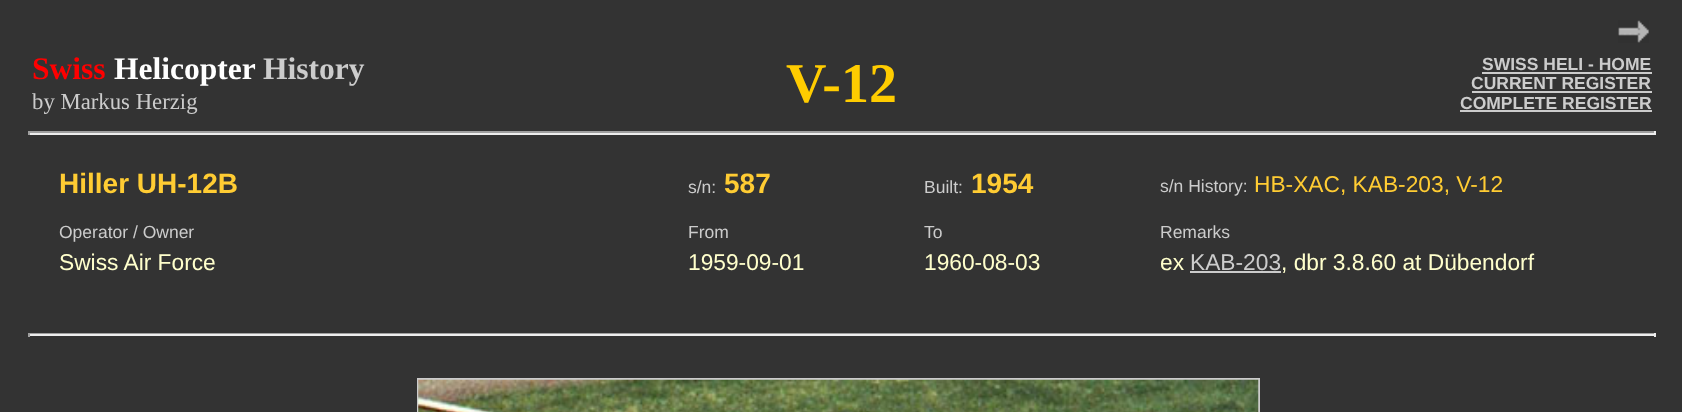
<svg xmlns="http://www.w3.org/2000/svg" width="1682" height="412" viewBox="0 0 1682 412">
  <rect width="100%" height="100%" fill="#333333"/>
  <image x="1618" y="20" width="31" height="23" href="img1.png"/>
  <text x="32" y="79" font-family="Liberation Serif" font-size="31.5" font-weight="bold" fill="#ff0000">Swiss</text>
  <text x="114" y="79" font-family="Liberation Serif" font-size="31.5" font-weight="bold" fill="#ffffff">Helicopter</text>
  <text x="263" y="79" font-family="Liberation Serif" font-size="31.5" font-weight="bold" fill="#cccccc">History</text>
  <text x="32" y="109" font-family="Liberation Serif" font-size="22.75" fill="#cccccc">by Markus Herzig</text>
  <text x="786" y="102" font-family="Liberation Serif" font-size="56" font-weight="bold" fill="#ffcc00">V-12</text>
  <text x="1482" y="70" font-family="Liberation Sans" font-size="17.5" font-weight="bold" fill="#cccccc">SWISS HELI - HOME</text>
  <rect x="1482" y="72" width="170" height="2" fill="#cccccc"/>
  <text x="1471" y="89" font-family="Liberation Sans" font-size="17.5" font-weight="bold" fill="#cccccc">CURRENT REGISTER</text>
  <rect x="1472" y="91" width="180" height="2" fill="#cccccc"/>
  <text x="1460" y="109" font-family="Liberation Sans" font-size="17.5" font-weight="bold" fill="#cccccc">COMPLETE REGISTER</text>
  <rect x="1460" y="110" width="192" height="2" fill="#cccccc"/>
  <rect x="28" y="131" width="1628" height="2" fill="#9f9f9f"/>
  <rect x="1654" y="131" width="2" height="4" fill="#eeeeee"/>
  <rect x="28" y="133" width="1628" height="2" fill="#eeeeee"/>
  <rect x="28" y="131" width="2" height="4" fill="#9f9f9f"/>
  <text x="59" y="193" font-family="Liberation Sans" font-size="28" font-weight="bold" fill="#ffcc33">Hiller UH-12B</text>
  <text x="688" y="193" font-family="Liberation Sans" font-size="17.5" fill="#cccccc">s/n:</text>
  <text x="724" y="193" font-family="Liberation Sans" font-size="28" font-weight="bold" fill="#ffcc33">587</text>
  <text x="924" y="193" font-family="Liberation Sans" font-size="17.5" fill="#cccccc">Built:</text>
  <text x="971" y="193" font-family="Liberation Sans" font-size="28" font-weight="bold" fill="#ffcc33">1954</text>
  <text x="1160" y="192" font-family="Liberation Sans" font-size="17.5" fill="#cccccc">s/n History:</text>
  <text x="1254" y="192" font-family="Liberation Sans" font-size="22.75" fill="#ffcc33">HB-XAC, KAB-203, V-12</text>
  <text x="59" y="238" font-family="Liberation Sans" font-size="17.5" fill="#cccccc">Operator / Owner</text>
  <text x="688" y="238" font-family="Liberation Sans" font-size="17.5" fill="#cccccc">From</text>
  <text x="924" y="238" font-family="Liberation Sans" font-size="17.5" fill="#cccccc">To</text>
  <text x="1160" y="238" font-family="Liberation Sans" font-size="17.5" fill="#cccccc">Remarks</text>
  <text x="59" y="270" font-family="Liberation Sans" font-size="22.75" fill="#ffffcc">Swiss Air Force</text>
  <text x="688" y="270" font-family="Liberation Sans" font-size="22.75" fill="#ffffcc">1959-09-01</text>
  <text x="924" y="270" font-family="Liberation Sans" font-size="22.75" fill="#ffffcc">1960-08-03</text>
  <text x="1160" y="270" font-family="Liberation Sans" font-size="22.75" fill="#ffffcc">ex</text>
  <text x="1190" y="270" font-family="Liberation Sans" font-size="22.75" fill="#cccccc">KAB-203</text>
  <rect x="1190" y="271" width="91" height="2" fill="#cccccc"/>
  <text x="1281" y="270" font-family="Liberation Sans" font-size="22.75" fill="#ffffcc">, dbr 3.8.60 at Dübendorf</text>
  <rect x="28" y="333" width="1628" height="1" fill="#9f9f9f"/>
  <rect x="1654" y="333" width="2" height="4" fill="#eeeeee"/>
  <rect x="28" y="334" width="1628" height="2" fill="#eeeeee"/>
  <rect x="28" y="333" width="2" height="4" fill="#9f9f9f"/>
  <rect x="418" y="379" width="841" height="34" fill="none" stroke="#cccccc" stroke-width="2"/>
  <image x="418" y="379" width="841" height="33" href="img2.png"/>
</svg>
